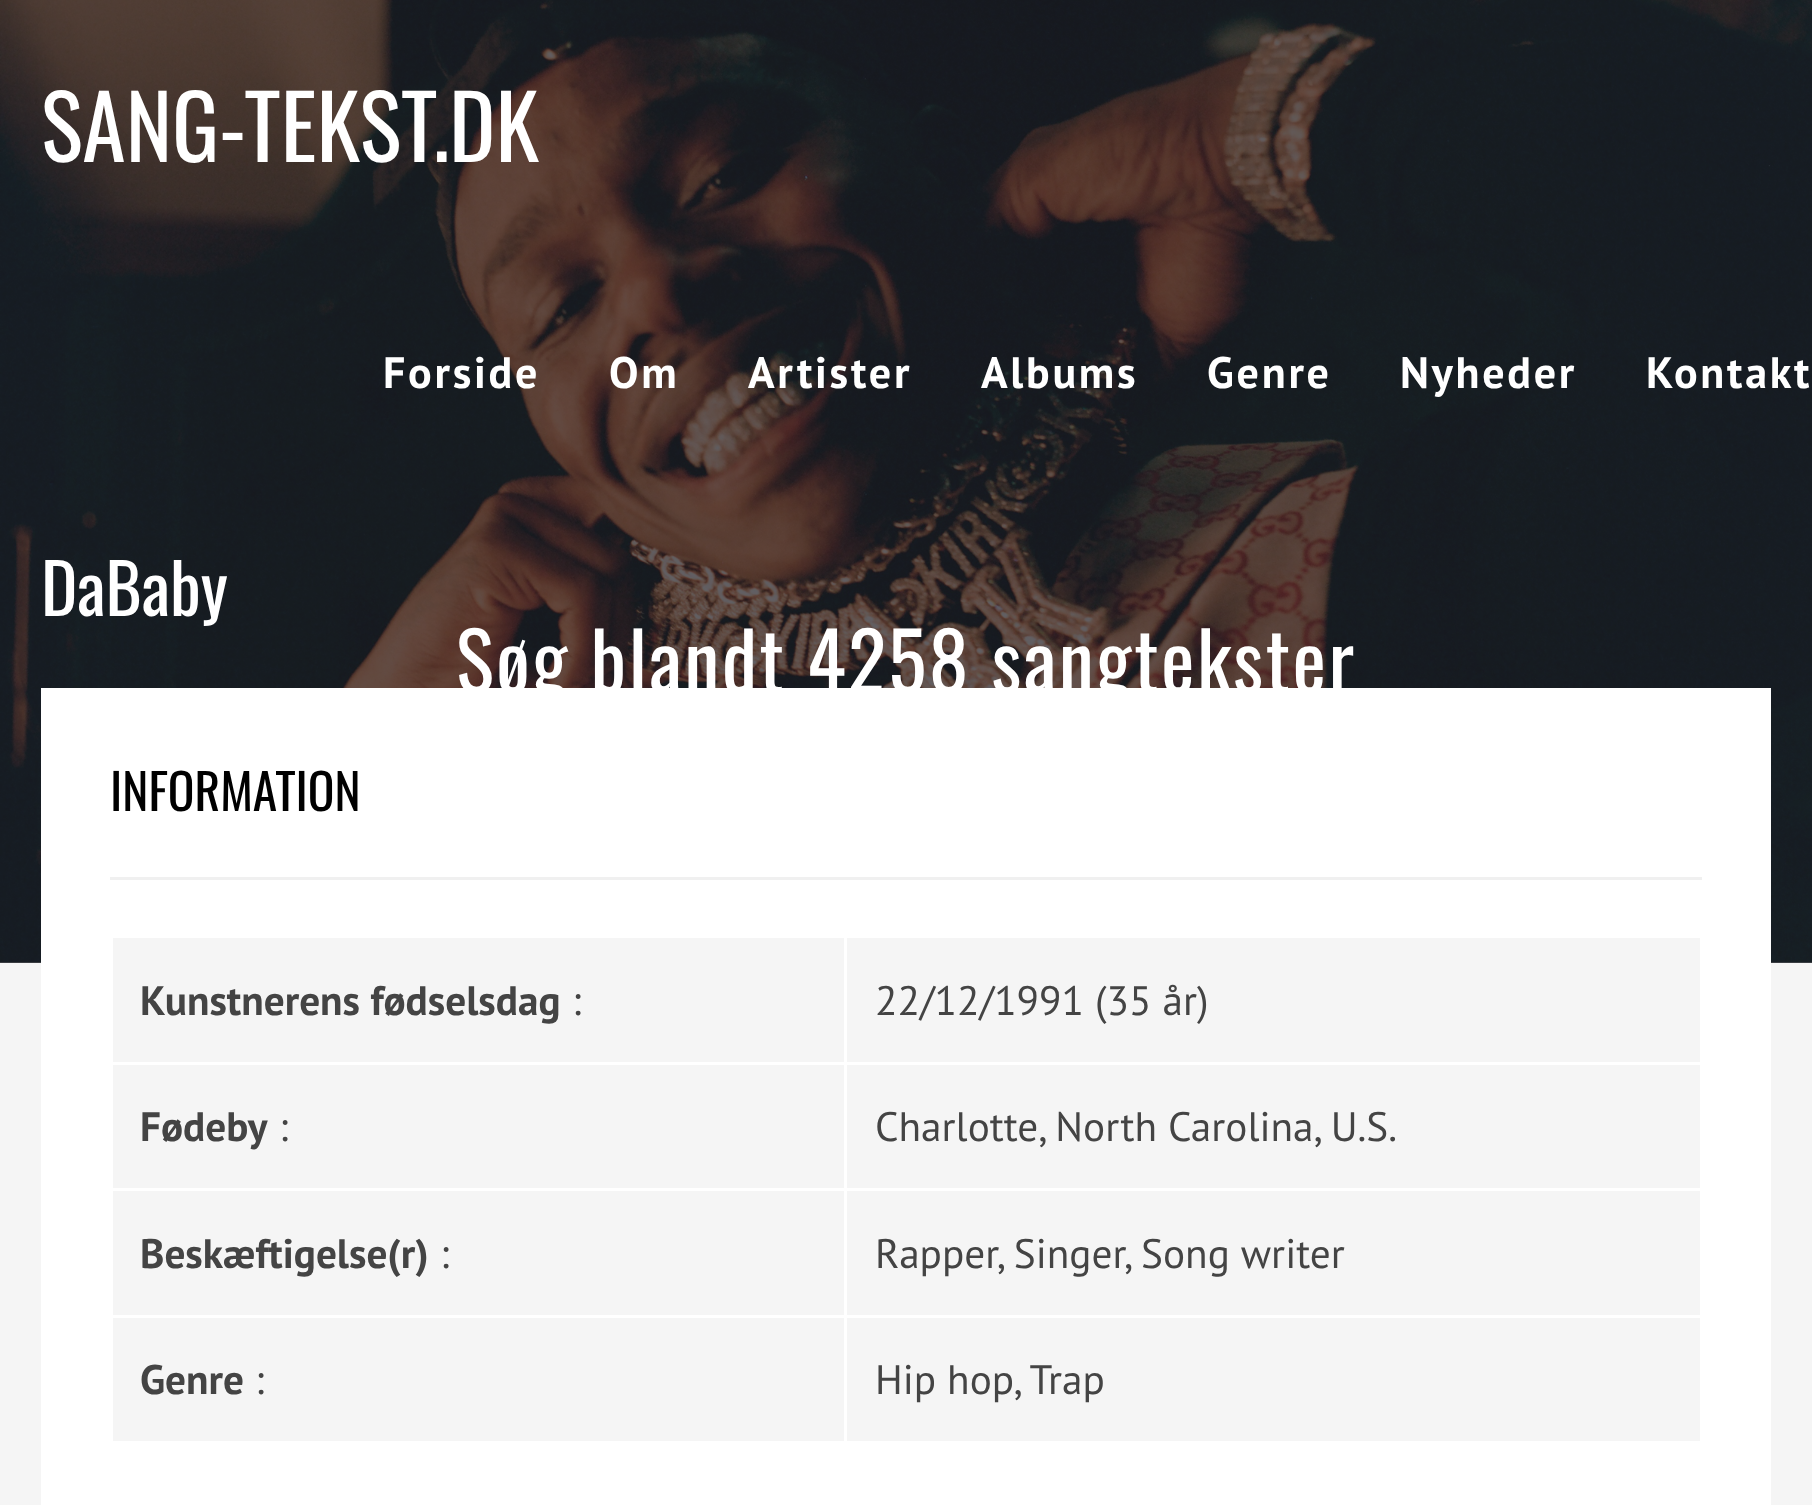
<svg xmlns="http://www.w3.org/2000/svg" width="1812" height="1505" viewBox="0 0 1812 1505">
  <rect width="100%" height="100%" fill="#f5f5f5"/>
  <rect x="0" y="962" width="1812" height="1" fill="#5f5c60"/>
  <image x="0" y="0" width="1812" height="963" href="img1.png"/>
  <text x="41" y="162" font-family="Oswald" font-size="88" fill="#ffffff">SANG-TEKST.DK</text>
  <text x="383" y="388" font-family="PT Sans" font-size="44" font-weight="bold" letter-spacing="2.75" fill="#ffffff">Forside</text>
  <text x="609" y="388" font-family="PT Sans" font-size="44" font-weight="bold" letter-spacing="2.75" fill="#ffffff">Om</text>
  <text x="748" y="388" font-family="PT Sans" font-size="44" font-weight="bold" letter-spacing="2.75" fill="#ffffff">Artister</text>
  <text x="981" y="388" font-family="PT Sans" font-size="44" font-weight="bold" letter-spacing="2.75" fill="#ffffff">Albums</text>
  <text x="1207" y="388" font-family="PT Sans" font-size="44" font-weight="bold" letter-spacing="2.75" fill="#ffffff">Genre</text>
  <text x="1400" y="388" font-family="PT Sans" font-size="44" font-weight="bold" letter-spacing="2.75" fill="#ffffff">Nyheder</text>
  <text x="1646" y="388" font-family="PT Sans" font-size="44" font-weight="bold" letter-spacing="2.75" fill="#ffffff">Kontakt</text>
  <text x="41" y="616" font-family="Oswald" font-size="69" fill="#ffffff">DaBaby</text>
  <text x="456" y="693" font-family="Oswald" font-size="79.75" letter-spacing="2.4" fill="#ffffff">Søg blandt 4258 sangtekster</text>
  <rect x="41" y="688" width="1730" height="817" fill="#ffffff"/>
  <rect x="110" y="877" width="1592" height="3" fill="#f0f0f0"/>
  <text x="110" y="811" font-family="Oswald" font-size="49.5" fill="#000000">INFORMATION</text>
  <rect x="113" y="938" width="1587" height="503" fill="#f5f5f5"/>
  <text x="140" y="1015" font-family="PT Sans" font-size="41.25" font-weight="bold" fill="#444444">Kunstnerens fødselsdag</text>
  <text x="572" y="1015" font-family="PT Sans" font-size="41.25" fill="#444444">:</text>
  <rect x="844" y="1062" width="858" height="3" fill="#ffffff"/>
  <rect x="844" y="1188" width="858" height="3" fill="#ffffff"/>
  <rect x="844" y="1315" width="858" height="3" fill="#ffffff"/>
  <rect x="844" y="1315" width="3" height="129" fill="#ffffff"/>
  <rect x="110" y="1315" width="737" height="3" fill="#ffffff"/>
  <rect x="844" y="1188" width="3" height="129" fill="#ffffff"/>
  <rect x="110" y="1188" width="737" height="3" fill="#ffffff"/>
  <rect x="844" y="1062" width="3" height="129" fill="#ffffff"/>
  <rect x="110" y="1062" width="737" height="3" fill="#ffffff"/>
  <rect x="844" y="935" width="3" height="129" fill="#ffffff"/>
  <text x="875" y="1015" font-family="PT Sans" font-size="41.25" fill="#444444">22/12/1991 (35 år)</text>
  <text x="140" y="1141" font-family="PT Sans" font-size="41.25" font-weight="bold" fill="#444444">Fødeby</text>
  <text x="279" y="1141" font-family="PT Sans" font-size="41.25" fill="#444444">:</text>
  <text x="875" y="1141" font-family="PT Sans" font-size="41.25" fill="#444444">Charlotte, North Carolina, U.S.</text>
  <text x="140" y="1268" font-family="PT Sans" font-size="41.25" font-weight="bold" fill="#444444">Beskæftigelse(r)</text>
  <text x="440" y="1268" font-family="PT Sans" font-size="41.25" fill="#444444">:</text>
  <text x="875" y="1268" font-family="PT Sans" font-size="41.25" fill="#444444">Rapper, Singer, Song writer</text>
  <text x="140" y="1394" font-family="PT Sans" font-size="41.25" font-weight="bold" fill="#444444">Genre</text>
  <text x="255" y="1394" font-family="PT Sans" font-size="41.25" fill="#444444">:</text>
  <text x="875" y="1394" font-family="PT Sans" font-size="41.25" fill="#444444">Hip hop, Trap</text>
</svg>
